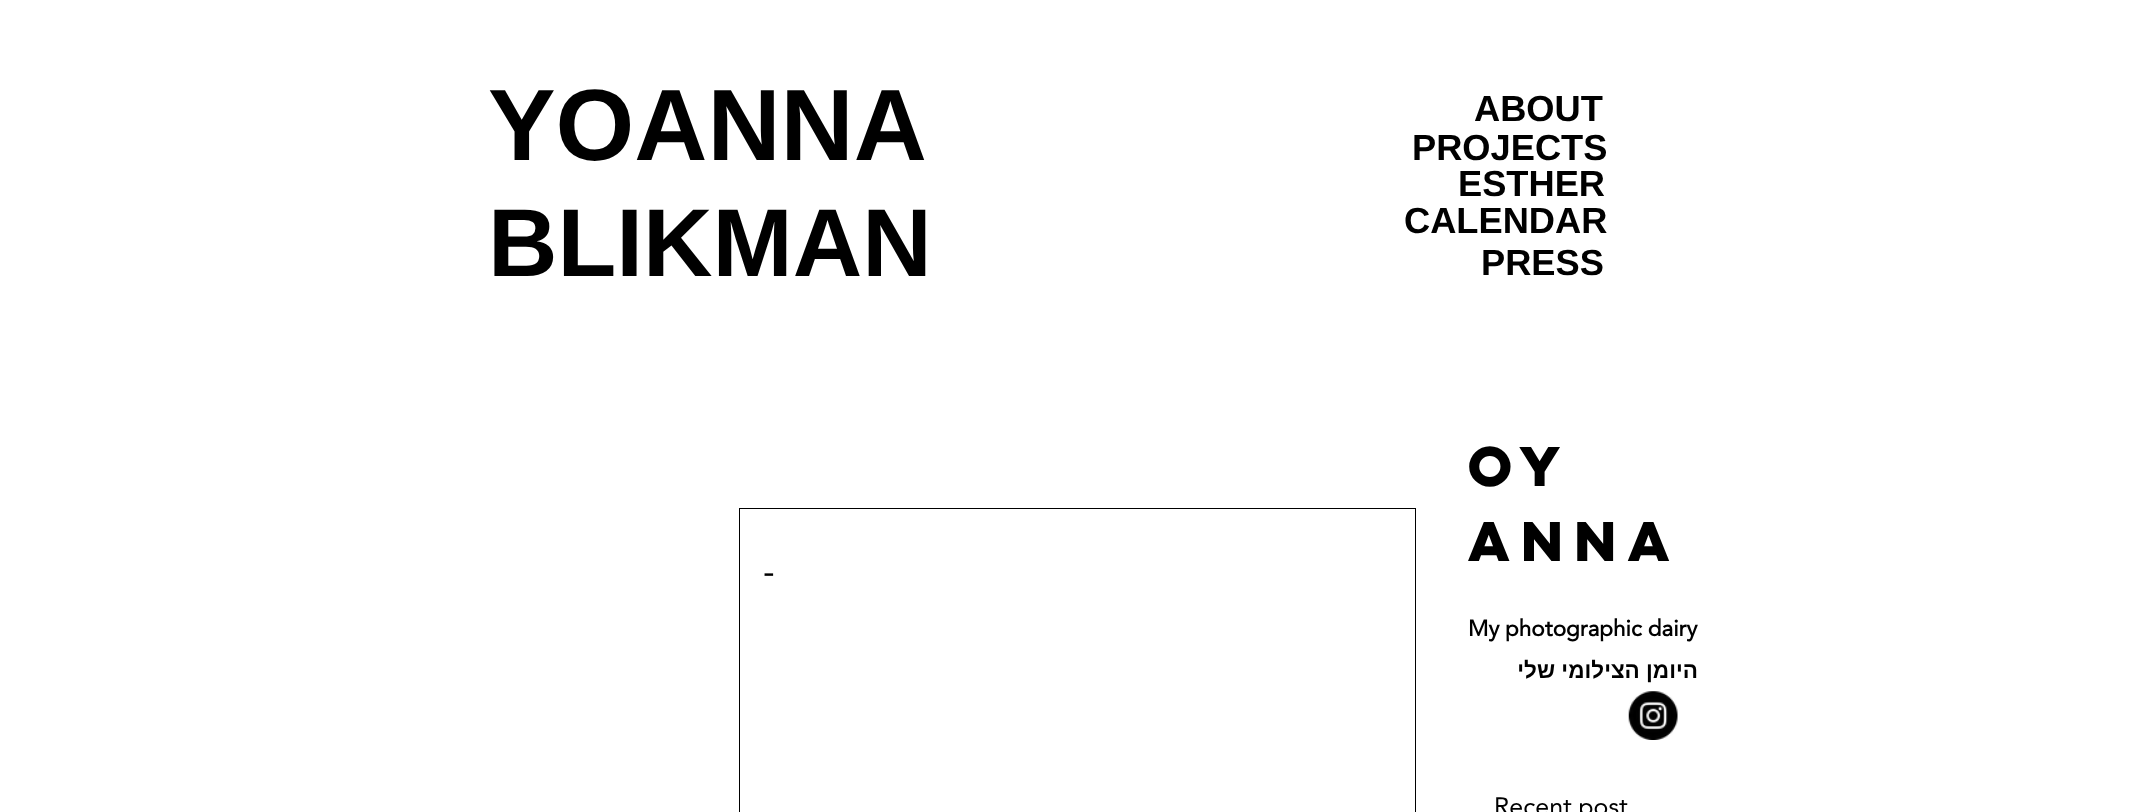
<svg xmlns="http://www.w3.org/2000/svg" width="2155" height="812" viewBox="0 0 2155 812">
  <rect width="100%" height="100%" fill="#ffffff"/>
  <text x="488" y="160" font-family="Liberation Sans" font-size="101.25" font-weight="bold" fill="#000000">YOANNA</text>
  <text x="488" y="276" font-family="Liberation Sans" font-size="96.25" font-weight="bold" fill="#000000">BLIKMAN</text>
  <text x="1474" y="121" font-family="Liberation Sans" font-size="36.25" font-weight="bold" fill="#000000">ABOUT</text>
  <text x="1412" y="160" font-family="Liberation Sans" font-size="36.25" font-weight="bold" fill="#000000">PROJECTS</text>
  <text x="1458" y="196" font-family="Liberation Sans" font-size="36.25" font-weight="bold" fill="#000000">ESTHER</text>
  <text x="1404" y="233" font-family="Liberation Sans" font-size="36.25" font-weight="bold" fill="#000000">CALENDAR</text>
  <text x="1481" y="275" font-family="Liberation Sans" font-size="36.25" font-weight="bold" fill="#000000">PRESS</text>
  <text x="1468" y="486" font-family="'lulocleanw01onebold'" font-size="50" font-weight="bold" fill="#000000">OY</text>
  <text x="1468" y="561" font-family="'lulocleanw01onebold'" font-size="50" font-weight="bold" fill="#000000">ANNA</text>
  <rect x="739.5" y="508.5" width="676" height="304" fill="none" stroke="#000000"/>
  <text x="763" y="583" font-family="'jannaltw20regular'" font-size="35" fill="#000000">-</text>
  <text x="1468" y="636" font-family="'jannaltw20regular'" font-size="22.5" font-weight="bold" fill="#000000">My photographic dairy</text>
  <text x="1698" y="678" font-family="Liberation Sans" font-size="22.5" font-weight="bold" direction="rtl" fill="#000000">היומן הצילומי שלי</text>
  <text x="1494" y="815" font-family="'jannaltw20regular'" font-size="25" fill="#000000">Recent post</text>
  <image x="1628" y="691" width="50" height="49" href="img1.png"/>
</svg>
